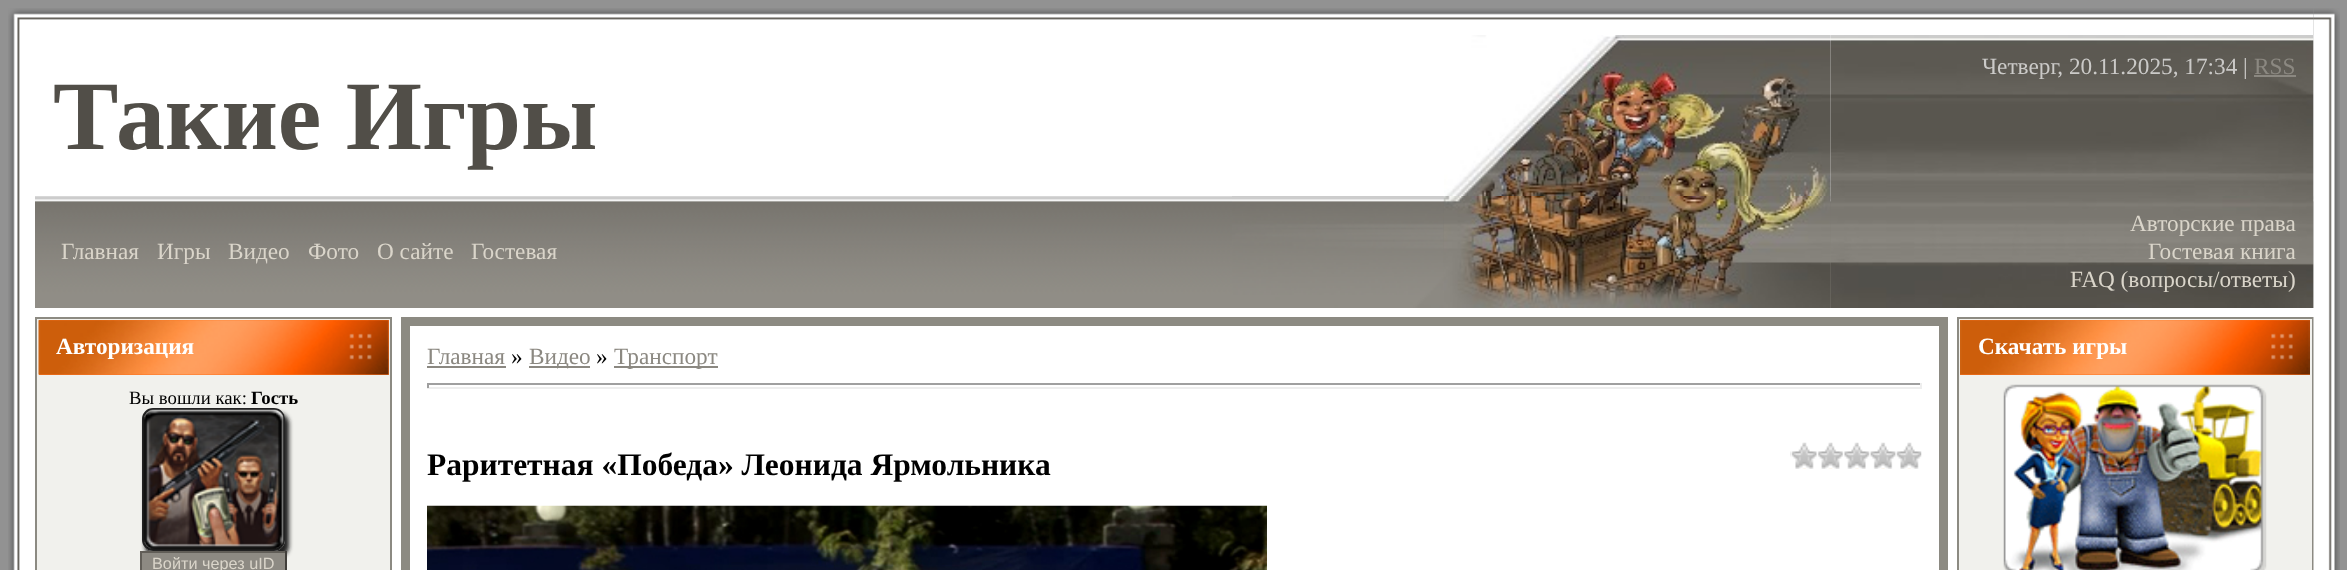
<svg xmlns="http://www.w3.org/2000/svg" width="2347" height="570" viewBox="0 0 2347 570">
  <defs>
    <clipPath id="clip1"><path d="M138 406H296V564H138ZM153 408H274C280 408 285 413 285 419V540C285 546 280 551 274 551H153C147 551 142 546 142 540V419C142 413 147 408 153 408Z" clip-rule="evenodd"/></clipPath>
    <filter id="blur1" x="-50%" y="-200%" width="200%" height="500%"><feGaussianBlur stdDeviation="2"/></filter>
  </defs>
  <rect width="100%" height="100%" fill="#929292"/>
  <image x="8" y="8" width="27" height="27" href="img1.png"/>
  <image x="35" y="8" width="2279" height="27" href="img2.png"/>
  <image x="2313" y="8" width="27" height="27" href="img3.png"/>
  <image x="8" y="35" width="27" height="535" href="img4.png"/>
  <image x="35" y="35" width="2279" height="273" href="img5.png"/>
  <image x="1830" y="35" width="484" height="161" href="img7.png"/>
  <image x="1444" y="35" width="387" height="161" href="img6.png"/>
  <text x="1982" y="74" font-family="Liberation Serif" font-size="23.25" fill="#cbcac8">Четверг, 20.11.2025, 17:34 |</text>
  <text x="2254" y="74" font-family="Liberation Serif" font-size="23.25" fill="#8b8881">RSS</text>
  <rect x="2254" y="75" width="42" height="2" fill="#8b8881"/>
  <rect x="35" y="195" width="1409" height="1" fill="#ffffff"/>
  <text x="53" y="149" font-family="Liberation Serif" font-size="98" font-weight="bold" fill="#514e48">Такие Игры</text>
  <image x="1232" y="196" width="212" height="112" href="img8.png"/>
  <text x="61" y="259" font-family="Liberation Serif" font-size="23.25" fill="#dad5ca">Главная</text>
  <text x="157" y="259" font-family="Liberation Serif" font-size="23.25" fill="#dad5ca">Игры</text>
  <text x="228" y="259" font-family="Liberation Serif" font-size="23.25" fill="#dad5ca">Видео</text>
  <text x="308" y="259" font-family="Liberation Serif" font-size="23.25" fill="#dad5ca">Фото</text>
  <text x="377" y="259" font-family="Liberation Serif" font-size="23.25" fill="#dad5ca">О сайте</text>
  <text x="471" y="259" font-family="Liberation Serif" font-size="23.25" fill="#dad5ca">Гостевая</text>
  <image x="1830" y="196" width="484" height="112" href="img10.png"/>
  <image x="1443" y="196" width="388" height="112" href="img9.png"/>
  <text x="2130" y="231" font-family="Liberation Serif" font-size="23.25" fill="#dad5ca">Авторские права</text>
  <text x="2148" y="259" font-family="Liberation Serif" font-size="23.25" fill="#dad5ca">Гостевая книга</text>
  <text x="2070" y="287" font-family="Liberation Serif" font-size="23.25" fill="#dad5ca">FAQ (вопросы/ответы)</text>
  <rect x="35" y="308" width="2279" height="262" fill="#ffffff"/>
  <rect x="36" y="318" width="355" height="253" fill="#f1f1ed" stroke="#8c8a82" stroke-width="2"/>
  <rect x="39" y="320" width="350" height="55" fill="#ff7423"/>
  <image x="38" y="320" width="351" height="55" href="img11.png"/>
  <text x="56" y="354" font-family="Liberation Serif" font-size="23.25" font-weight="bold" fill="#ffffff">Авторизация</text>
  <text x="129" y="404" font-family="Liberation Serif" font-size="18.75" fill="#000000">Вы вошли как:</text>
  <text x="251" y="404" font-family="Liberation Serif" font-size="18.75" font-weight="bold" fill="#000000">Гость</text>
  <g clip-path="url(#clip1)">
    <rect x="145" y="413" width="144" height="144" rx="11" fill="#222222" filter="url(#blur1)"/>
  </g>
  <rect x="143" y="409" width="141" height="141" rx="10" fill="none" stroke="#222222" stroke-width="2"/>
  <image x="143" y="409" width="141" height="141" href="img12.png"/>
  <rect x="142" y="553" width="143" height="17" fill="#8d8a83"/>
  <rect x="140" y="551" width="147" height="2" fill="#615e58"/>
  <rect x="285" y="551" width="2" height="19" fill="#413f3b"/>
  <rect x="140" y="551" width="2" height="19" fill="#615e58"/>
  <text x="152" y="569" font-family="Liberation Sans" font-size="16.25" fill="#dad5ca">Войти через uID</text>
  <rect x="405.5" y="321.5" width="1538" height="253" fill="none" stroke="#8c8a82" stroke-width="9"/>
  <text x="427" y="364" font-family="Liberation Serif" font-size="23.25" fill="#8b8881">Главная</text>
  <rect x="427" y="366" width="79" height="2" fill="#8b8881"/>
  <text x="511" y="364" font-family="Liberation Serif" font-size="23.25" fill="#000000">»</text>
  <rect x="529" y="366" width="61" height="2" fill="#8b8881"/>
  <text x="529" y="364" font-family="Liberation Serif" font-size="23.25" fill="#8b8881">Видео</text>
  <text x="596" y="364" font-family="Liberation Serif" font-size="23.25" fill="#000000">»</text>
  <rect x="614" y="366" width="104" height="2" fill="#8b8881"/>
  <text x="614" y="364" font-family="Liberation Serif" font-size="23.25" fill="#8b8881">Транспорт</text>
  <rect x="427" y="383" width="1495" height="2" fill="#9f9f9f"/>
  <rect x="1920" y="383" width="2" height="5" fill="#eeeeee"/>
  <rect x="427" y="387" width="1495" height="2" fill="#eeeeee"/>
  <rect x="427" y="383" width="2" height="5" fill="#9f9f9f"/>
  <text x="427" y="475" font-family="Liberation Serif" font-size="31.5" font-weight="bold" fill="#000000">Раритетная «Победа» Леонида Ярмольника</text>
  <image x="1790" y="442" width="132" height="27" href="img13.png"/>
  <image x="427" y="505" width="840" height="65" href="img14.png"/>
  <rect x="1958" y="318" width="355" height="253" fill="#f1f1ed" stroke="#8c8a82" stroke-width="2"/>
  <rect x="1960" y="320" width="350" height="55" fill="#ff7423"/>
  <image x="1960" y="320" width="350" height="55" href="img15.png"/>
  <text x="1978" y="354" font-family="Liberation Serif" font-size="23.25" font-weight="bold" fill="#ffffff">Скачать игры</text>
  <image x="2003" y="384" width="264" height="186" href="img16.png"/>
  <image x="2313" y="35" width="27" height="535" href="img17.png"/>
</svg>
